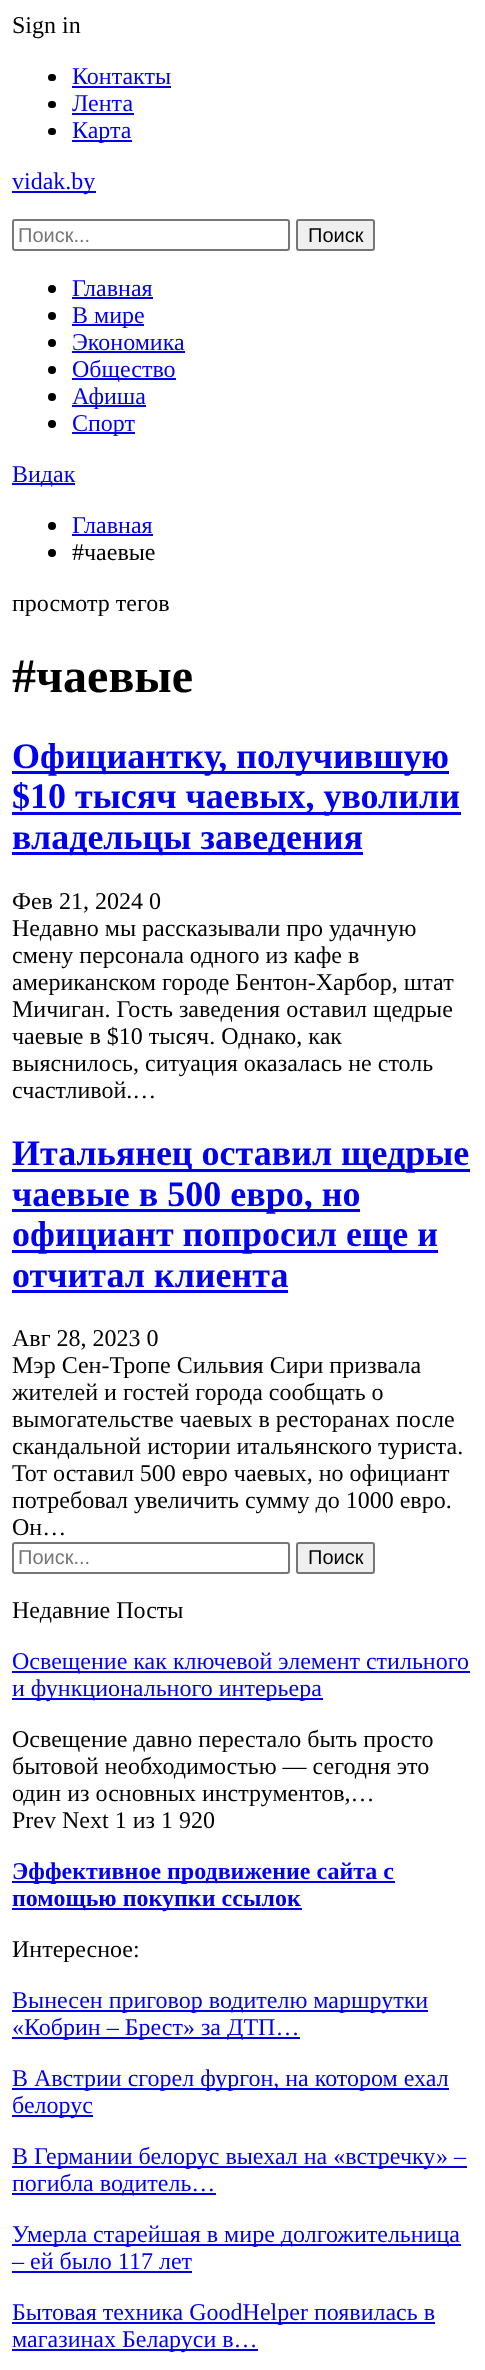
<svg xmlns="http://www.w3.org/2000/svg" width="485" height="2370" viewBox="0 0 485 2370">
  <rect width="100%" height="100%" fill="#ffffff"/>
  <text x="12" y="33" font-family="Liberation Serif" font-size="24" fill="#000000">Sign in</text>
  <rect x="48" y="74" width="8" height="7" rx="3.5" fill="#000000"/>
  <text x="72" y="84" font-family="Liberation Serif" font-size="24" fill="#0000ee">Контакты</text>
  <rect x="72" y="86" width="99" height="2" fill="#0000ee"/>
  <rect x="48" y="101" width="8" height="7" rx="3.5" fill="#000000"/>
  <text x="72" y="111" font-family="Liberation Serif" font-size="24" fill="#0000ee">Лента</text>
  <rect x="72" y="113" width="62" height="2" fill="#0000ee"/>
  <rect x="48" y="128" width="8" height="7" rx="3.5" fill="#000000"/>
  <rect x="72" y="140" width="60" height="2" fill="#0000ee"/>
  <text x="72" y="138" font-family="Liberation Serif" font-size="24" fill="#0000ee">Карта</text>
  <rect x="12" y="191" width="84" height="2" fill="#0000ee"/>
  <text x="12" y="189" font-family="Liberation Serif" font-size="24" fill="#0000ee">vidak.by</text>
  <rect x="13" y="220" width="276" height="30" rx="2" fill="none" stroke="#767676" stroke-width="2"/>
  <text x="18" y="242" font-family="Liberation Sans" font-size="20" fill="#757575">Поиск...</text>
  <rect x="297" y="220" width="77" height="30" rx="2" fill="#efefef" stroke="#767676" stroke-width="2"/>
  <text x="308" y="242" font-family="Liberation Sans" font-size="20" fill="#000000">Поиск</text>
  <circle cx="52" cy="289" r="4" fill="#000000"/>
  <text x="72" y="296" font-family="Liberation Serif" font-size="24" fill="#0000ee">Главная</text>
  <rect x="72" y="297" width="81" height="2" fill="#0000ee"/>
  <circle cx="52" cy="316" r="4" fill="#000000"/>
  <rect x="72" y="324" width="72" height="2" fill="#0000ee"/>
  <text x="72" y="323" font-family="Liberation Serif" font-size="24" fill="#0000ee">В мире</text>
  <circle cx="52" cy="343" r="4" fill="#000000"/>
  <text x="72" y="350" font-family="Liberation Serif" font-size="24" fill="#0000ee">Экономика</text>
  <rect x="72" y="351" width="113" height="2" fill="#0000ee"/>
  <circle cx="52" cy="370" r="4" fill="#000000"/>
  <rect x="72" y="378" width="104" height="2" fill="#0000ee"/>
  <text x="72" y="377" font-family="Liberation Serif" font-size="24" fill="#0000ee">Общество</text>
  <circle cx="52" cy="397" r="4" fill="#000000"/>
  <rect x="72" y="405" width="74" height="2" fill="#0000ee"/>
  <text x="72" y="404" font-family="Liberation Serif" font-size="24" fill="#0000ee">Афиша</text>
  <circle cx="52" cy="424" r="4" fill="#000000"/>
  <rect x="72" y="432" width="63" height="2" fill="#0000ee"/>
  <text x="72" y="431" font-family="Liberation Serif" font-size="24" fill="#0000ee">Спорт</text>
  <rect x="12" y="483" width="63" height="2" fill="#0000ee"/>
  <text x="12" y="482" font-family="Liberation Serif" font-size="24" fill="#0000ee">Видак</text>
  <circle cx="52" cy="526" r="4" fill="#000000"/>
  <text x="72" y="533" font-family="Liberation Serif" font-size="24" fill="#0000ee">Главная</text>
  <rect x="72" y="534" width="81" height="2" fill="#0000ee"/>
  <circle cx="52" cy="553" r="4" fill="#000000"/>
  <text x="72" y="560" font-family="Liberation Serif" font-size="24" fill="#000000">#чаевые</text>
  <text x="12" y="611" font-family="Liberation Serif" font-size="24" fill="#000000">просмотр тегов</text>
  <text x="12" y="692" font-family="Liberation Serif" font-size="48" font-weight="bold" fill="#000000">#чаевые</text>
  <rect x="12" y="771" width="437" height="3" fill="#0000ee"/>
  <text x="12" y="768" font-family="Liberation Serif" font-size="36" font-weight="bold" fill="#0000ee">Официантку, получившую</text>
  <rect x="12" y="812" width="449" height="3" fill="#0000ee"/>
  <text x="12" y="808" font-family="Liberation Serif" font-size="36" font-weight="bold" fill="#0000ee">$10 тысяч чаевых, уволили</text>
  <rect x="12" y="852" width="351" height="3" fill="#0000ee"/>
  <text x="12" y="849" font-family="Liberation Serif" font-size="36" font-weight="bold" fill="#0000ee">владельцы заведения</text>
  <text x="12" y="909" font-family="Liberation Serif" font-size="24" fill="#000000">Фев 21, 2024 0</text>
  <text x="12" y="936" font-family="Liberation Serif" font-size="24" fill="#000000">Недавно мы рассказывали про удачную</text>
  <text x="12" y="963" font-family="Liberation Serif" font-size="24" fill="#000000">смену персонала одного из кафе в</text>
  <text x="12" y="990" font-family="Liberation Serif" font-size="24" fill="#000000">американском городе Бентон-Харбор, штат</text>
  <text x="12" y="1017" font-family="Liberation Serif" font-size="24" fill="#000000">Мичиган. Гость заведения оставил щедрые</text>
  <text x="12" y="1044" font-family="Liberation Serif" font-size="24" fill="#000000">чаевые в $10 тысяч. Однако, как</text>
  <text x="12" y="1071" font-family="Liberation Serif" font-size="24" fill="#000000">выяснилось, ситуация оказалась не столь</text>
  <text x="12" y="1098" font-family="Liberation Serif" font-size="24" fill="#000000">счастливой.…</text>
  <rect x="12" y="1169" width="458" height="3" fill="#0000ee"/>
  <text x="12" y="1165" font-family="Liberation Serif" font-size="36" font-weight="bold" fill="#0000ee">Итальянец оставил щедрые</text>
  <rect x="12" y="1209" width="348" height="3" fill="#0000ee"/>
  <text x="12" y="1206" font-family="Liberation Serif" font-size="36" font-weight="bold" fill="#0000ee">чаевые в 500 евро, но</text>
  <rect x="12" y="1250" width="426" height="3" fill="#0000ee"/>
  <text x="12" y="1246" font-family="Liberation Serif" font-size="36" font-weight="bold" fill="#0000ee">официант попросил еще и</text>
  <text x="12" y="1287" font-family="Liberation Serif" font-size="36" font-weight="bold" fill="#0000ee">отчитал клиента</text>
  <rect x="12" y="1290" width="276" height="3" fill="#0000ee"/>
  <text x="12" y="1346" font-family="Liberation Serif" font-size="24" fill="#000000">Авг 28, 2023 0</text>
  <text x="12" y="1373" font-family="Liberation Serif" font-size="24" fill="#000000">Мэр Сен-Тропе Сильвия Сири призвала</text>
  <text x="12" y="1400" font-family="Liberation Serif" font-size="24" fill="#000000">жителей и гостей города сообщать о</text>
  <text x="12" y="1427" font-family="Liberation Serif" font-size="24" fill="#000000">вымогательстве чаевых в ресторанах после</text>
  <text x="12" y="1454" font-family="Liberation Serif" font-size="24" fill="#000000">скандальной истории итальянского туриста.</text>
  <text x="12" y="1481" font-family="Liberation Serif" font-size="24" fill="#000000">Тот оставил 500 евро чаевых, но официант</text>
  <text x="12" y="1508" font-family="Liberation Serif" font-size="24" fill="#000000">потребовал увеличить сумму до 1000 евро.</text>
  <text x="12" y="1535" font-family="Liberation Serif" font-size="24" fill="#000000">Он…</text>
  <rect x="13" y="1543" width="276" height="30" rx="2" fill="none" stroke="#767676" stroke-width="2"/>
  <text x="18" y="1564" font-family="Liberation Sans" font-size="20" fill="#757575">Поиск...</text>
  <rect x="297" y="1543" width="77" height="30" rx="2" fill="#efefef" stroke="#767676" stroke-width="2"/>
  <text x="308" y="1564" font-family="Liberation Sans" font-size="20" fill="#000000">Поиск</text>
  <text x="12" y="1618" font-family="Liberation Serif" font-size="24" fill="#000000">Недавние Посты</text>
  <rect x="12" y="1671" width="458" height="2" fill="#0000ee"/>
  <text x="12" y="1669" font-family="Liberation Serif" font-size="24" fill="#0000ee">Освещение как ключевой элемент стильного</text>
  <rect x="12" y="1698" width="311" height="2" fill="#0000ee"/>
  <text x="12" y="1696" font-family="Liberation Serif" font-size="24" fill="#0000ee">и функционального интерьера</text>
  <text x="12" y="1747" font-family="Liberation Serif" font-size="24" fill="#000000">Освещение давно перестало быть просто</text>
  <text x="12" y="1774" font-family="Liberation Serif" font-size="24" fill="#000000">бытовой необходимостью — сегодня это</text>
  <text x="12" y="1801" font-family="Liberation Serif" font-size="24" fill="#000000">один из основных инструментов,…</text>
  <text x="12" y="1828" font-family="Liberation Serif" font-size="24" fill="#000000">Prev Next 1 из 1 920</text>
  <rect x="12" y="1881" width="383" height="2" fill="#0000ee"/>
  <text x="12" y="1879" font-family="Liberation Serif" font-size="24" font-weight="bold" fill="#0000ee">Эффективное продвижение сайта с</text>
  <rect x="12" y="1908" width="290" height="2" fill="#0000ee"/>
  <text x="12" y="1906" font-family="Liberation Serif" font-size="24" font-weight="bold" fill="#0000ee">помощью покупки ссылок</text>
  <text x="12" y="1957" font-family="Liberation Serif" font-size="24" fill="#000000">Интересное:</text>
  <rect x="12" y="2010" width="416" height="2" fill="#0000ee"/>
  <text x="12" y="2008" font-family="Liberation Serif" font-size="24" fill="#0000ee">Вынесен приговор водителю маршрутки</text>
  <rect x="12" y="2037" width="288" height="2" fill="#0000ee"/>
  <text x="12" y="2035" font-family="Liberation Serif" font-size="24" fill="#0000ee">«Кобрин – Брест» за ДТП…</text>
  <rect x="12" y="2088" width="437" height="2" fill="#0000ee"/>
  <text x="12" y="2086" font-family="Liberation Serif" font-size="24" fill="#0000ee">В Австрии сгорел фургон, на котором ехал</text>
  <rect x="12" y="2115" width="81" height="2" fill="#0000ee"/>
  <text x="12" y="2113" font-family="Liberation Serif" font-size="24" fill="#0000ee">белорус</text>
  <rect x="12" y="2166" width="455" height="2" fill="#0000ee"/>
  <text x="12" y="2164" font-family="Liberation Serif" font-size="24" fill="#0000ee">В Германии белорус выехал на «встречку» –</text>
  <rect x="12" y="2193" width="204" height="2" fill="#0000ee"/>
  <text x="12" y="2191" font-family="Liberation Serif" font-size="24" fill="#0000ee">погибла водитель…</text>
  <rect x="12" y="2244" width="449" height="2" fill="#0000ee"/>
  <text x="12" y="2242" font-family="Liberation Serif" font-size="24" fill="#0000ee">Умерла старейшая в мире долгожительница</text>
  <text x="12" y="2269" font-family="Liberation Serif" font-size="24" fill="#0000ee">– ей было 117 лет</text>
  <rect x="12" y="2271" width="180" height="2" fill="#0000ee"/>
  <rect x="12" y="2322" width="423" height="2" fill="#0000ee"/>
  <text x="12" y="2320" font-family="Liberation Serif" font-size="24" fill="#0000ee">Бытовая техника GoodHelper появилась в</text>
  <rect x="12" y="2349" width="246" height="2" fill="#0000ee"/>
  <text x="12" y="2347" font-family="Liberation Serif" font-size="24" fill="#0000ee">магазинах Беларуси в…</text>
</svg>
